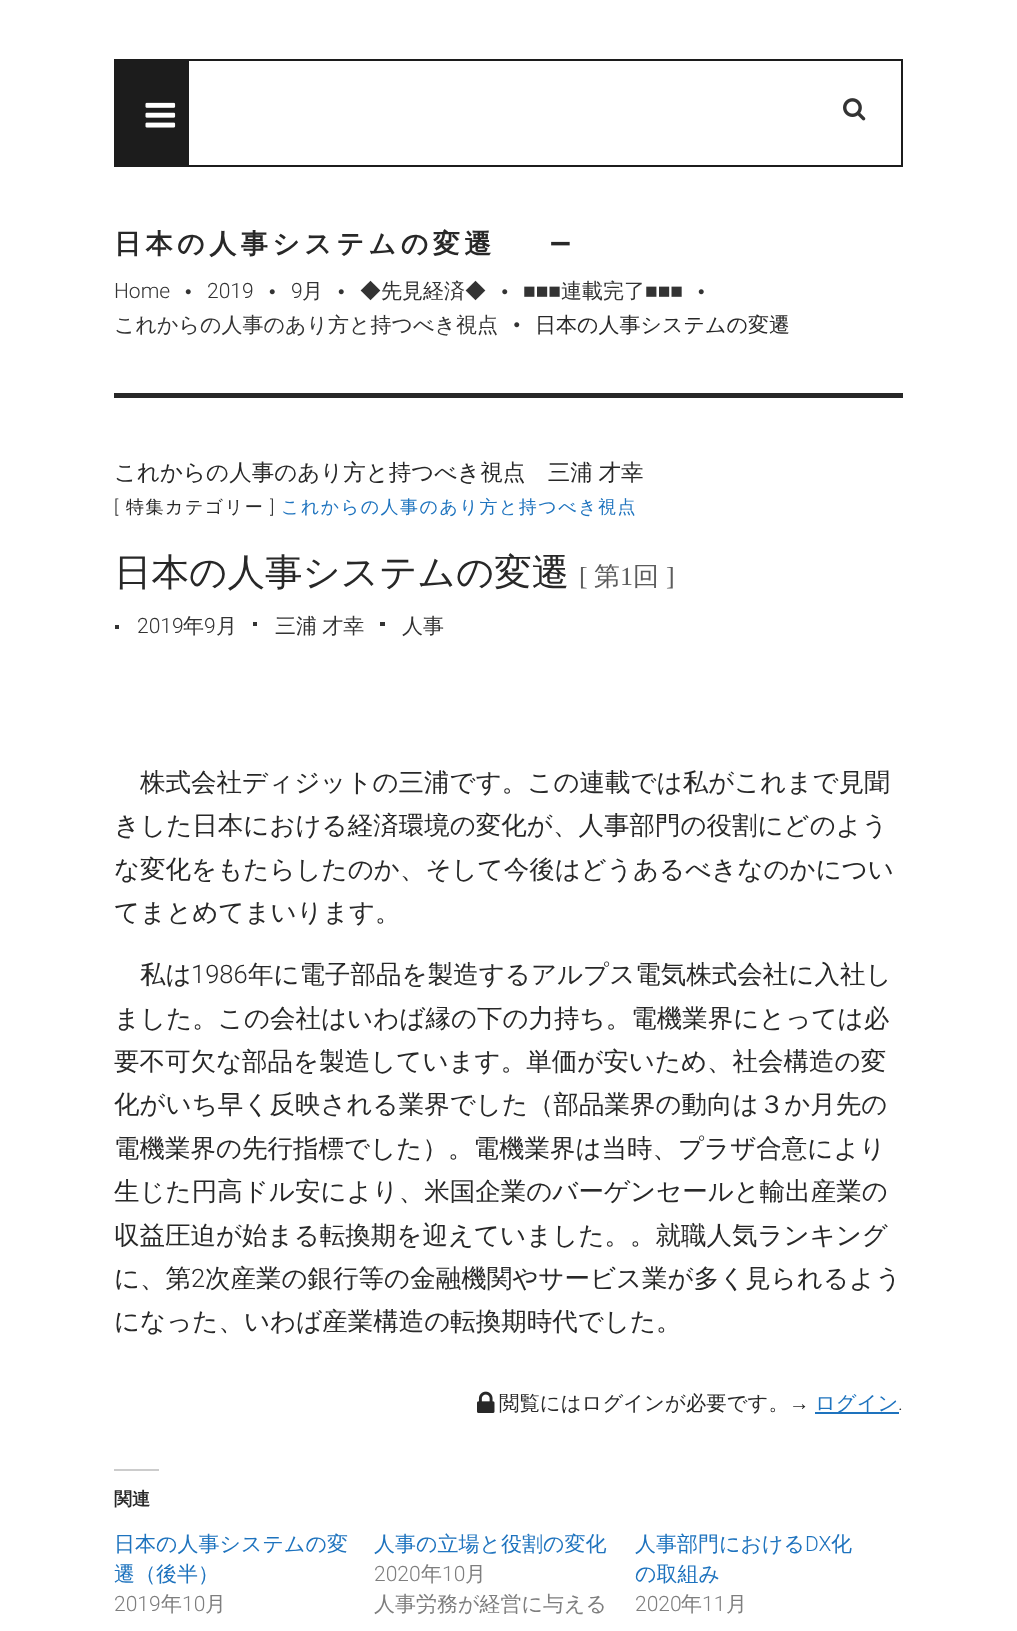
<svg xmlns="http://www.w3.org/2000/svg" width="1017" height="1631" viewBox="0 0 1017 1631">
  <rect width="100%" height="100%" fill="#ffffff"/>
  <rect x="187" y="60" width="715" height="106" fill="none" stroke="#1c1c1c" stroke-width="2"/>
  <rect x="114" y="59" width="75" height="108" fill="#1c1c1c"/>
  <image x="145" y="102" width="31" height="26" href="img1.png"/>
  <image x="843" y="98" width="23" height="23" href="img2.png"/>
  <text x="114" y="253" font-family="WenQuanYi Zen Hei" font-size="27" font-weight="bold" letter-spacing="4.5" fill="#282828">日本の人事システムの変遷</text>
  <text x="550" y="253" font-family="Roboto" font-size="27" font-weight="900" letter-spacing="4.5" fill="#282828">—</text>
  <text x="114" y="298" font-family="Roboto" font-size="21" font-weight="300" fill="#333333">Home</text>
  <image x="185" y="289" width="6" height="6" href="img3.png"/>
  <text x="207" y="298" font-family="Roboto" font-size="21" font-weight="300" fill="#333333">2019</text>
  <image x="269" y="289" width="6" height="6" href="img3.png"/>
  <text x="291" y="298" font-family="Roboto" font-size="21" font-weight="300" fill="#333333">9</text>
  <text x="302" y="298" font-family="WenQuanYi Zen Hei" font-size="21" font-weight="500" fill="#333333">月</text>
  <image x="338" y="289" width="6" height="6" href="img3.png"/>
  <text x="360" y="298" font-family="WenQuanYi Zen Hei" font-size="21" font-weight="500" fill="#333333">◆先見経済◆</text>
  <image x="502" y="289" width="6" height="6" href="img4.png"/>
  <text x="523" y="298" font-family="Liberation Sans" font-size="21" fill="#333333">■■■</text>
  <text x="561" y="298" font-family="WenQuanYi Zen Hei" font-size="21" font-weight="500" fill="#333333">連載完了</text>
  <text x="645" y="298" font-family="Liberation Sans" font-size="21" fill="#333333">■■■</text>
  <image x="698" y="289" width="6" height="6" href="img3.png"/>
  <text x="114" y="332" font-family="WenQuanYi Zen Hei" font-size="21" font-weight="500" fill="#333333">これからの人事のあり方と持つべき視点</text>
  <image x="514" y="322" width="6" height="6" href="img4.png"/>
  <text x="535" y="332" font-family="WenQuanYi Zen Hei" font-size="21" font-weight="500" fill="#282828">日本の人事システムの変遷</text>
  <rect x="114" y="393" width="789" height="5" fill="#282828"/>
  <text x="114" y="480" word-spacing="-1" font-family="WenQuanYi Zen Hei" font-size="22.5" font-weight="500" fill="#282828">これからの人事のあり方と持つべき視点　三浦 才幸</text>
  <text x="114" y="513" font-family="Roboto" font-size="18" font-weight="300" letter-spacing="1.5" fill="#282828">[</text>
  <text x="126" y="513" font-family="WenQuanYi Zen Hei" font-size="18" font-weight="500" letter-spacing="1.5" fill="#282828">特集カテゴリー</text>
  <text x="270" y="513" font-family="Roboto" font-size="18" font-weight="300" letter-spacing="1.5" fill="#282828">]</text>
  <text x="281" y="513" font-family="WenQuanYi Zen Hei" font-size="18" font-weight="500" letter-spacing="1.5" fill="#1e73be">これからの人事のあり方と持つべき視点</text>
  <text x="114" y="585" font-family="WenQuanYi Zen Hei" font-size="37.5" font-weight="500" fill="#282828">日本の人事システムの変遷</text>
  <text x="579" y="585" font-family="Liberation Serif" font-size="26" fill="#5c5c5c">[</text>
  <text x="594" y="585" font-family="WenQuanYi Zen Hei" font-size="26" font-weight="500" fill="#5c5c5c">第</text>
  <text x="620" y="585" font-family="Liberation Serif" font-size="26" fill="#5c5c5c">1</text>
  <text x="633" y="585" font-family="WenQuanYi Zen Hei" font-size="26" font-weight="500" fill="#5c5c5c">回</text>
  <text x="666" y="585" font-family="Liberation Serif" font-size="26" fill="#5c5c5c">]</text>
  <rect x="115" y="625" width="4" height="4" fill="#333333"/>
  <text x="137" y="633" font-family="Roboto" font-size="21" font-weight="300" fill="#333333">2019</text>
  <text x="183" y="633" font-family="WenQuanYi Zen Hei" font-size="21" font-weight="500" fill="#333333">年</text>
  <text x="204" y="633" font-family="Roboto" font-size="21" font-weight="300" fill="#333333">9</text>
  <text x="216" y="633" font-family="WenQuanYi Zen Hei" font-size="21" font-weight="500" fill="#333333">月</text>
  <rect x="253" y="622" width="4" height="4" fill="#333333"/>
  <text x="275" y="633" word-spacing="-1" font-family="WenQuanYi Zen Hei" font-size="21" font-weight="500" fill="#333333">三浦 才幸</text>
  <rect x="380" y="622" width="5" height="4" fill="#333333"/>
  <text x="402" y="633" font-family="WenQuanYi Zen Hei" font-size="21" font-weight="500" fill="#333333">人事</text>
  <text x="140" y="791" font-family="WenQuanYi Zen Hei" font-size="25.5" font-weight="500" fill="#282828">株式会社ディジットの三浦です。この連載では私がこれまで見聞</text>
  <text x="114" y="834" font-family="WenQuanYi Zen Hei" font-size="25.5" font-weight="500" fill="#282828">きした日本における経済環境の変化が、人事部門の役割にどのよう</text>
  <text x="114" y="878" font-family="WenQuanYi Zen Hei" font-size="25.5" font-weight="500" fill="#282828">な変化をもたらしたのか、そして今後はどうあるべきなのかについ</text>
  <text x="114" y="921" font-family="WenQuanYi Zen Hei" font-size="25.5" font-weight="500" fill="#282828">てまとめてまいります。</text>
  <text x="140" y="983" font-family="WenQuanYi Zen Hei" font-size="25.5" font-weight="500" fill="#282828">私は</text>
  <text x="191" y="983" font-family="Roboto" font-size="25.5" font-weight="300" fill="#282828">1986</text>
  <text x="248" y="983" font-family="WenQuanYi Zen Hei" font-size="25.5" font-weight="500" fill="#282828">年に電子部品を製造するアルプス電気株式会社に入社し</text>
  <text x="114" y="1027" font-family="WenQuanYi Zen Hei" font-size="25.5" font-weight="500" fill="#282828">ました。この会社はいわば縁の下の力持ち。電機業界にとっては必</text>
  <text x="114" y="1070" font-family="WenQuanYi Zen Hei" font-size="25.5" font-weight="500" fill="#282828">要不可欠な部品を製造しています。単価が安いため、社会構造の変</text>
  <text x="114" y="1113" font-family="WenQuanYi Zen Hei" font-size="25.5" font-weight="500" fill="#282828">化がいち早く反映される業界でした（部品業界の動向は３か月先の</text>
  <text x="114" y="1157" font-family="WenQuanYi Zen Hei" font-size="25.5" font-weight="500" fill="#282828">電機業界の先行指標でした）。電機業界は当時、プラザ合意により</text>
  <text x="114" y="1200" font-family="WenQuanYi Zen Hei" font-size="25.5" font-weight="500" fill="#282828">生じた円高ドル安により、米国企業のバーゲンセールと輸出産業の</text>
  <text x="114" y="1244" font-family="WenQuanYi Zen Hei" font-size="25.5" font-weight="500" fill="#282828">収益圧迫が始まる転換期を迎えていました。。就職人気ランキング</text>
  <text x="114" y="1287" font-family="WenQuanYi Zen Hei" font-size="25.5" font-weight="500" fill="#282828">に、第</text>
  <text x="191" y="1287" font-family="Roboto" font-size="25.5" font-weight="300" fill="#282828">2</text>
  <text x="205" y="1287" font-family="WenQuanYi Zen Hei" font-size="25.5" font-weight="500" fill="#282828">次産業の銀行等の金融機関やサービス業が多く見られるよう</text>
  <text x="114" y="1330" font-family="WenQuanYi Zen Hei" font-size="25.5" font-weight="500" fill="#282828">になった、いわば産業構造の転換期時代でした。</text>
  <image x="477" y="1391" width="18" height="22" href="img5.png"/>
  <text x="499" y="1410" font-family="WenQuanYi Zen Hei" font-size="20.4" font-weight="500" fill="#282828">閲覧にはログインが必要です。</text>
  <text x="789" y="1410" font-family="Liberation Sans" font-size="20.4" fill="#282828">→</text>
  <rect x="815" y="1412" width="84" height="2" fill="#1e73be"/>
  <text x="815" y="1410" font-family="WenQuanYi Zen Hei" font-size="20.4" font-weight="500" fill="#1e73be">ログイン</text>
  <text x="898" y="1410" font-family="Roboto" font-size="20.4" font-weight="300" fill="#282828">.</text>
  <rect x="114" y="1469" width="45" height="2" fill="#cccccc"/>
  <text x="114" y="1505" font-family="WenQuanYi Zen Hei" font-size="18" font-weight="bold" fill="#282828">関連</text>
  <text x="114" y="1551" font-family="WenQuanYi Zen Hei" font-size="21" font-weight="500" fill="#1e73be">日本の人事システムの変</text>
  <text x="114" y="1581" font-family="WenQuanYi Zen Hei" font-size="21" font-weight="500" fill="#1e73be">遷（後半）</text>
  <text x="114" y="1611" font-family="Roboto" font-size="21" font-weight="300" fill="#7e7e7e">2019</text>
  <text x="161" y="1611" font-family="WenQuanYi Zen Hei" font-size="21" font-weight="500" fill="#7e7e7e">年</text>
  <text x="182" y="1611" font-family="Roboto" font-size="21" font-weight="300" fill="#7e7e7e">10</text>
  <text x="205" y="1611" font-family="WenQuanYi Zen Hei" font-size="21" font-weight="500" fill="#7e7e7e">月</text>
  <text x="374" y="1551" font-family="WenQuanYi Zen Hei" font-size="21" font-weight="500" fill="#1e73be">人事の立場と役割の変化</text>
  <text x="374" y="1581" font-family="Roboto" font-size="21" font-weight="300" fill="#7e7e7e">2020</text>
  <text x="421" y="1581" font-family="WenQuanYi Zen Hei" font-size="21" font-weight="500" fill="#7e7e7e">年</text>
  <text x="442" y="1581" font-family="Roboto" font-size="21" font-weight="300" fill="#7e7e7e">10</text>
  <text x="465" y="1581" font-family="WenQuanYi Zen Hei" font-size="21" font-weight="500" fill="#7e7e7e">月</text>
  <text x="374" y="1611" font-family="WenQuanYi Zen Hei" font-size="21" font-weight="500" fill="#7e7e7e">人事労務が経営に与える</text>
  <text x="635" y="1551" font-family="WenQuanYi Zen Hei" font-size="21" font-weight="500" fill="#1e73be">人事部門における</text>
  <text x="805" y="1551" font-family="Roboto" font-size="21" font-weight="300" fill="#1e73be">DX</text>
  <text x="831" y="1551" font-family="WenQuanYi Zen Hei" font-size="21" font-weight="500" fill="#1e73be">化</text>
  <text x="635" y="1581" font-family="WenQuanYi Zen Hei" font-size="21" font-weight="500" fill="#1e73be">の取組み</text>
  <text x="635" y="1611" font-family="Roboto" font-size="21" font-weight="300" fill="#7e7e7e">2020</text>
  <text x="681" y="1611" font-family="WenQuanYi Zen Hei" font-size="21" font-weight="500" fill="#7e7e7e">年</text>
  <text x="702" y="1611" font-family="Roboto" font-size="21" font-weight="300" fill="#7e7e7e">11</text>
  <text x="726" y="1611" font-family="WenQuanYi Zen Hei" font-size="21" font-weight="500" fill="#7e7e7e">月</text>
</svg>
